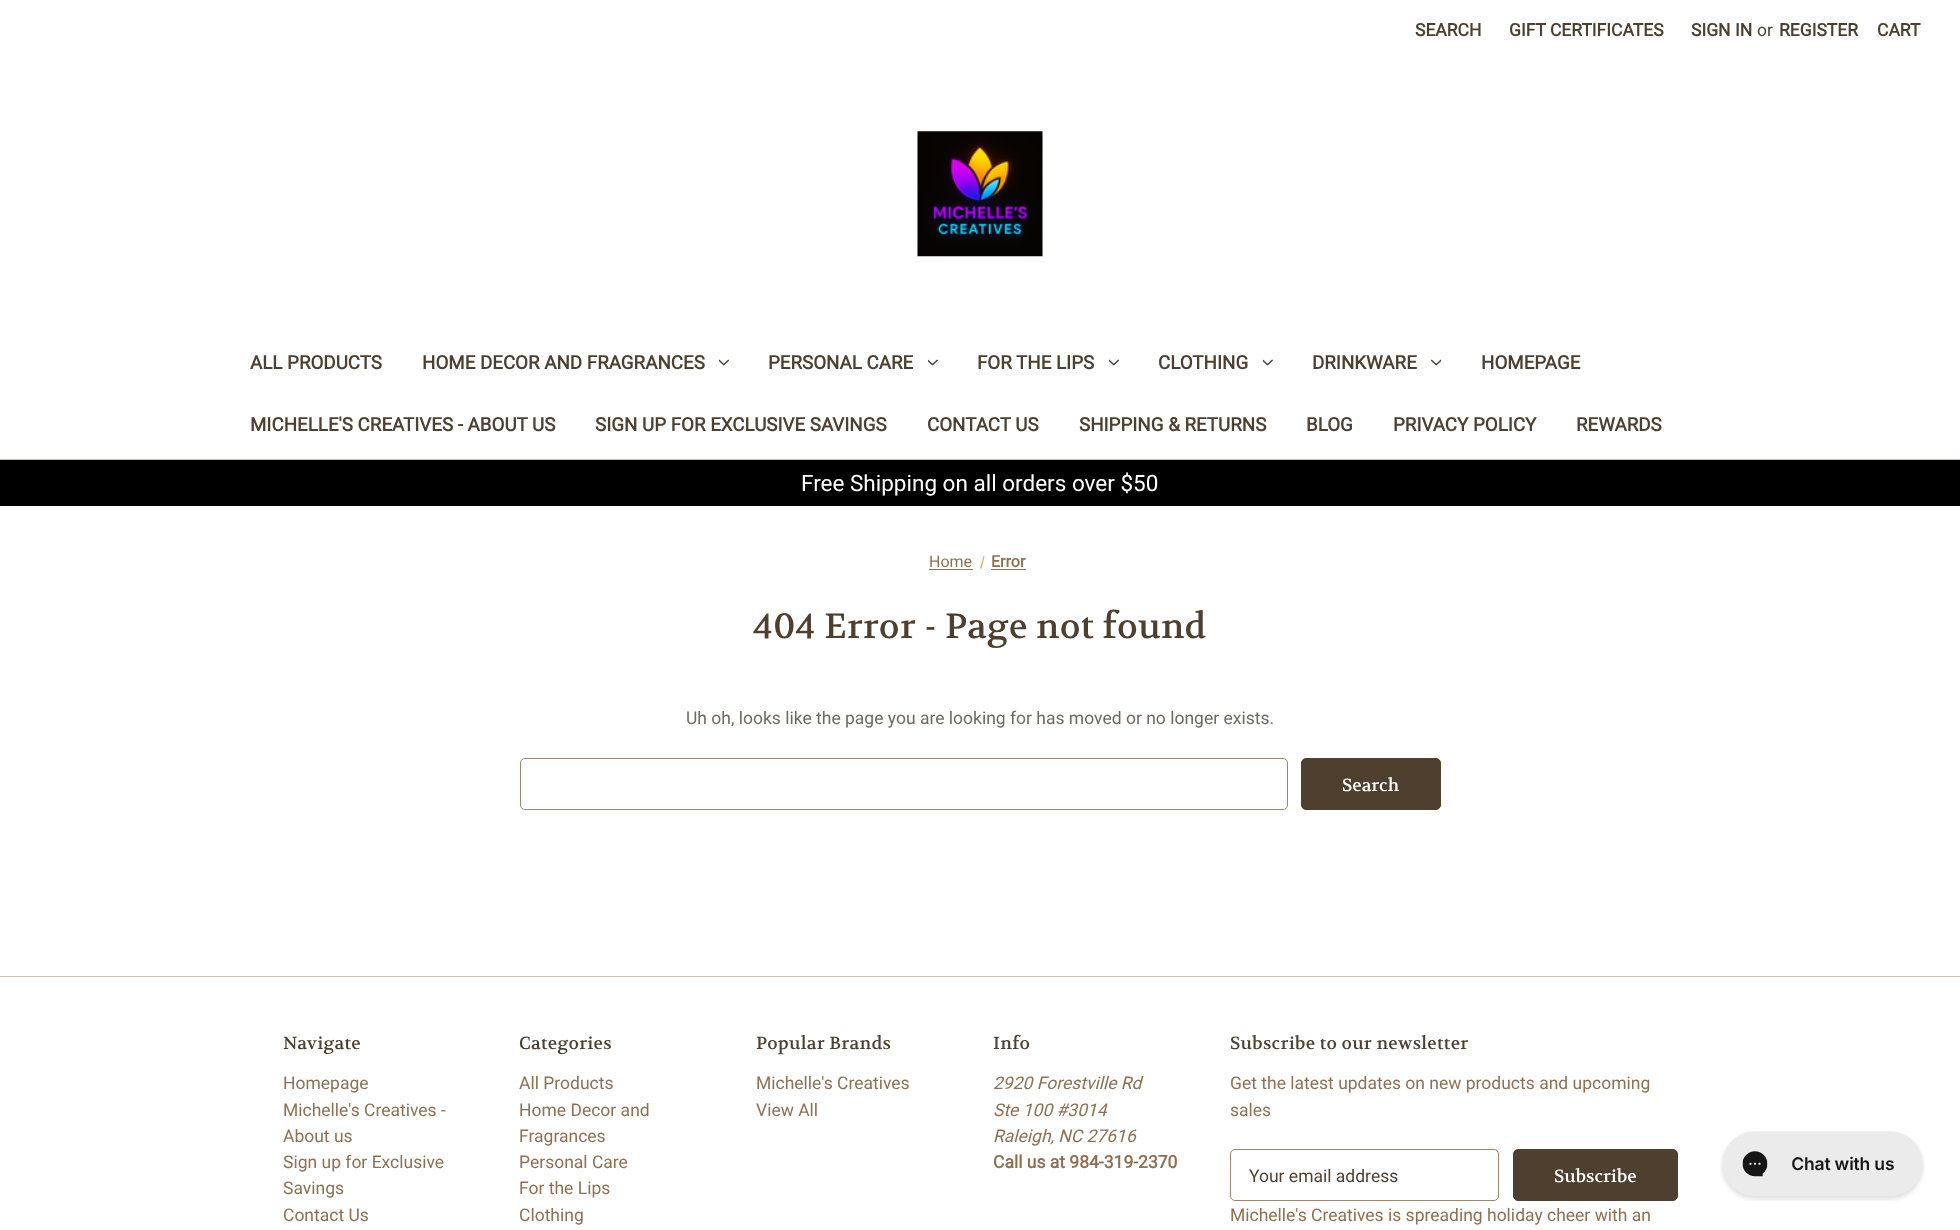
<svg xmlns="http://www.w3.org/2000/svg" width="1960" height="1230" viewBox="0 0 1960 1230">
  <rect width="100%" height="100%" fill="#ffffff"/>
  <rect x="0" y="459" width="1960" height="1" fill="#ccbdae"/>
  <text x="1415" y="36" font-family="Roboto" font-size="17.5" font-weight="bold" fill="#4f3f2f">SEARCH</text>
  <text x="1509" y="36" font-family="Roboto" font-size="17.5" font-weight="bold" fill="#4f3f2f">GIFT CERTIFICATES</text>
  <text x="1691" y="36" font-family="Roboto" font-size="17.5" font-weight="bold" fill="#4f3f2f">SIGN IN</text>
  <text x="1757" y="36" font-family="Roboto" font-size="17.5" fill="#4f3f2f">or</text>
  <text x="1779" y="36" font-family="Roboto" font-size="17.5" font-weight="bold" fill="#4f3f2f">REGISTER</text>
  <text x="1877" y="36" font-family="Roboto" font-size="17.5" font-weight="bold" fill="#4f3f2f">CART</text>
  <image x="917" y="131" width="126" height="126" href="img1.png"/>
  <text x="250" y="369" font-family="Roboto" font-size="18.75" font-weight="bold" fill="#4f3f2f">ALL PRODUCTS</text>
  <text x="422" y="369" font-family="Roboto" font-size="18.75" font-weight="bold" fill="#4f3f2f">HOME DECOR AND FRAGRANCES</text>
  <image x="719" y="359" width="10" height="7" href="img2.png"/>
  <text x="768" y="369" font-family="Roboto" font-size="18.75" font-weight="bold" fill="#4f3f2f">PERSONAL CARE</text>
  <image x="928" y="359" width="10" height="7" href="img3.png"/>
  <text x="977" y="369" font-family="Roboto" font-size="18.75" font-weight="bold" fill="#4f3f2f">FOR THE LIPS</text>
  <image x="1109" y="359" width="10" height="7" href="img2.png"/>
  <text x="1158" y="369" font-family="Roboto" font-size="18.75" font-weight="bold" fill="#4f3f2f">CLOTHING</text>
  <image x="1263" y="359" width="10" height="7" href="img3.png"/>
  <text x="1312" y="369" font-family="Roboto" font-size="18.75" font-weight="bold" fill="#4f3f2f">DRINKWARE</text>
  <image x="1431" y="359" width="10" height="7" href="img4.png"/>
  <text x="1481" y="369" font-family="Roboto" font-size="18.75" font-weight="bold" fill="#4f3f2f">HOMEPAGE</text>
  <text x="250" y="431" font-family="Roboto" font-size="18.75" font-weight="bold" fill="#4f3f2f">MICHELLE'S CREATIVES - ABOUT US</text>
  <text x="595" y="431" font-family="Roboto" font-size="18.75" font-weight="bold" fill="#4f3f2f">SIGN UP FOR EXCLUSIVE SAVINGS</text>
  <text x="927" y="431" font-family="Roboto" font-size="18.75" font-weight="bold" fill="#4f3f2f">CONTACT US</text>
  <text x="1079" y="431" font-family="Roboto" font-size="18.75" font-weight="bold" fill="#4f3f2f">SHIPPING &amp; RETURNS</text>
  <text x="1306" y="431" font-family="Roboto" font-size="18.75" font-weight="bold" fill="#4f3f2f">BLOG</text>
  <text x="1393" y="431" font-family="Roboto" font-size="18.75" font-weight="bold" fill="#4f3f2f">PRIVACY POLICY</text>
  <text x="1576" y="431" font-family="Roboto" font-size="18.75" font-weight="bold" fill="#4f3f2f">REWARDS</text>
  <rect x="0" y="460" width="1960" height="46" fill="#000000"/>
  <text x="801" y="491" font-family="Roboto" font-size="22.5" fill="#ffffff">Free Shipping on all orders over $50</text>
  <text x="929" y="567" font-family="Roboto" font-size="16" fill="#917052">Home</text>
  <rect x="929" y="569" width="44" height="1" fill="#917052"/>
  <path d="M983.5 556H984.5L981.5 568.5H980Z" fill="#e6a15c"/>
  <text x="991" y="567" font-family="Roboto" font-size="16" font-weight="bold" fill="#917052">Error</text>
  <rect x="991" y="569" width="35" height="1" fill="#917052"/>
  <text x="753" y="638" font-family="Volkhov" font-size="35" letter-spacing="0.3" fill="#4f3f2f">404 Error - Page not found</text>
  <text x="686" y="724" font-family="Roboto" font-size="17.5" fill="#74685c">Uh oh, looks like the page you are looking for has moved or no longer exists.</text>
  <rect x="520.5" y="758.5" width="767" height="51" rx="4.5" fill="none" stroke="#a18568"/>
  <rect x="1301.5" y="758.5" width="139" height="51" rx="4.5" fill="#4f3f2f" stroke="#4f3f2f"/>
  <text x="1342" y="791" font-family="Volkhov" font-size="17.5" fill="#ffffff">Search</text>
  <rect x="0" y="976" width="1960" height="1" fill="#ccbdae"/>
  <text x="283" y="1049" font-family="Volkhov" font-size="17.5" letter-spacing="0.3" fill="#4f3f2f">Navigate</text>
  <text x="283" y="1089" font-family="Roboto" font-size="17.5" fill="#917052">Homepage</text>
  <text x="283" y="1116" font-family="Roboto" font-size="17.5" fill="#917052">Michelle's Creatives -</text>
  <text x="283" y="1142" font-family="Roboto" font-size="17.5" fill="#917052">About us</text>
  <text x="283" y="1168" font-family="Roboto" font-size="17.5" fill="#917052">Sign up for Exclusive</text>
  <text x="283" y="1194" font-family="Roboto" font-size="17.5" fill="#917052">Savings</text>
  <text x="283" y="1221" font-family="Roboto" font-size="17.5" fill="#917052">Contact Us</text>
  <text x="519" y="1049" font-family="Volkhov" font-size="17.5" letter-spacing="0.3" fill="#4f3f2f">Categories</text>
  <text x="519" y="1089" font-family="Roboto" font-size="17.5" fill="#917052">All Products</text>
  <text x="519" y="1116" font-family="Roboto" font-size="17.5" fill="#917052">Home Decor and</text>
  <text x="519" y="1142" font-family="Roboto" font-size="17.5" fill="#917052">Fragrances</text>
  <text x="519" y="1168" font-family="Roboto" font-size="17.5" fill="#917052">Personal Care</text>
  <text x="519" y="1194" font-family="Roboto" font-size="17.5" fill="#917052">For the Lips</text>
  <text x="519" y="1221" font-family="Roboto" font-size="17.5" fill="#917052">Clothing</text>
  <text x="756" y="1049" font-family="Volkhov" font-size="17.5" letter-spacing="0.3" fill="#4f3f2f">Popular Brands</text>
  <text x="756" y="1089" font-family="Roboto" font-size="17.5" fill="#917052">Michelle's Creatives</text>
  <text x="756" y="1116" font-family="Roboto" font-size="17.5" fill="#917052">View All</text>
  <text x="993" y="1049" font-family="Volkhov" font-size="17.5" letter-spacing="0.3" fill="#4f3f2f">Info</text>
  <text x="993" y="1089" font-family="Roboto" font-size="17.5" font-style="italic" fill="#917052">2920 Forestville Rd</text>
  <text x="993" y="1116" font-family="Roboto" font-size="17.5" font-style="italic" fill="#917052">Ste 100 #3014</text>
  <text x="993" y="1142" font-family="Roboto" font-size="17.5" font-style="italic" fill="#917052">Raleigh, NC 27616</text>
  <text x="993" y="1168" font-family="Roboto" font-size="17.5" font-weight="bold" fill="#917052">Call us at 984-319-2370</text>
  <text x="1230" y="1049" font-family="Volkhov" font-size="17.5" letter-spacing="0.3" fill="#4f3f2f">Subscribe to our newsletter</text>
  <text x="1230" y="1089" font-family="Roboto" font-size="17.5" fill="#917052">Get the latest updates on new products and upcoming</text>
  <text x="1230" y="1116" font-family="Roboto" font-size="17.5" fill="#917052">sales</text>
  <rect x="1230.5" y="1149.5" width="268" height="51" rx="4.5" fill="none" stroke="#a18568"/>
  <text x="1249" y="1182" font-family="Roboto" font-size="17.5" fill="#4f3f2f">Your email address</text>
  <rect x="1513.5" y="1149.5" width="164" height="51" rx="4.5" fill="#4f3f2f" stroke="#4f3f2f"/>
  <text x="1554" y="1182" font-family="Volkhov" font-size="17.5" fill="#ffffff">Subscribe</text>
  <text x="1230" y="1221" font-family="Roboto" font-size="17.5" fill="#917052">Michelle's Creatives is spreading holiday cheer with an</text>
  <image x="1720" y="1131" width="205" height="70" href="img5.png"/>
</svg>
